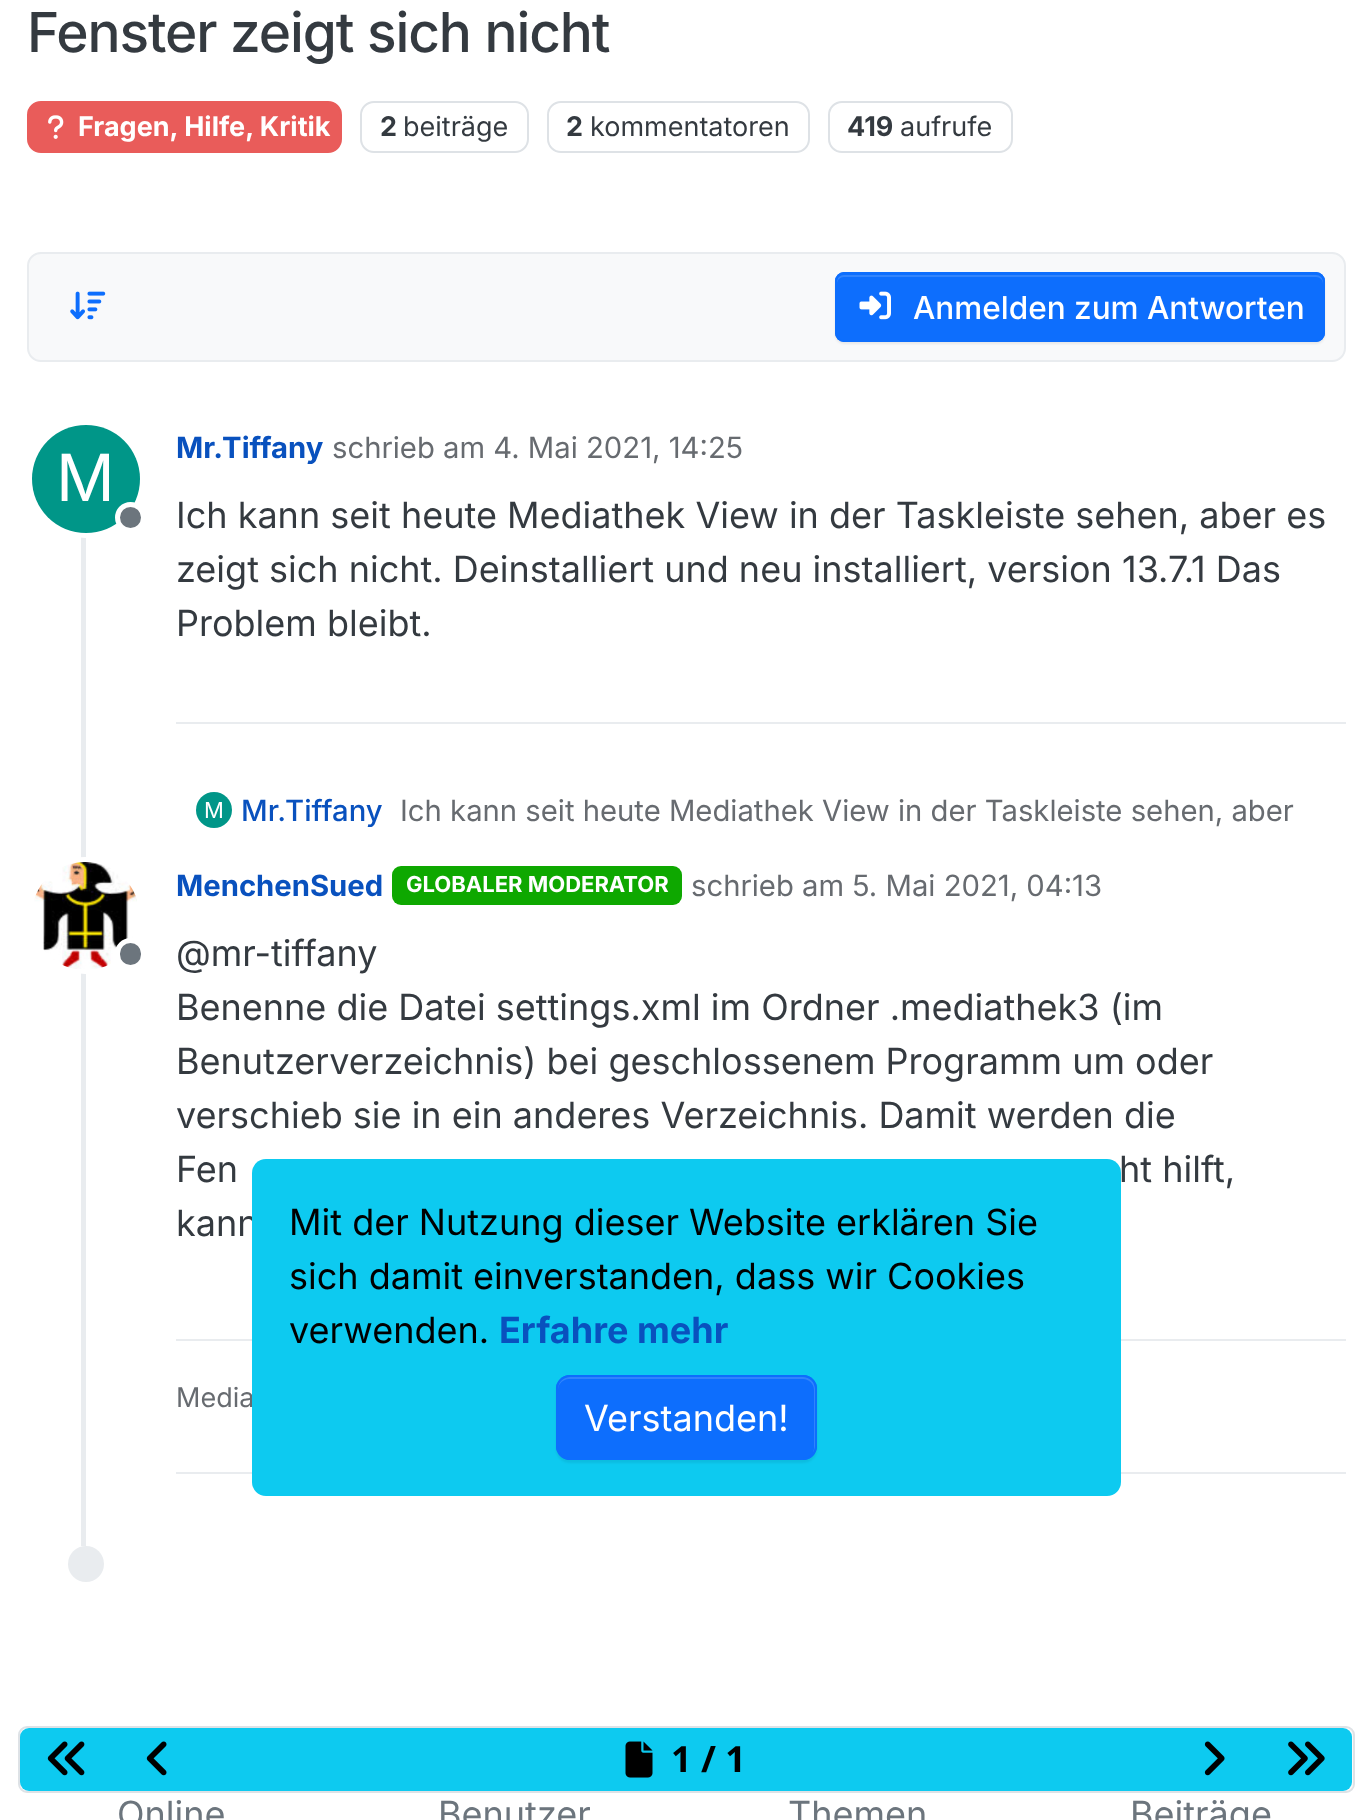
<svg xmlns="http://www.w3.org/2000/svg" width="1372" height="1820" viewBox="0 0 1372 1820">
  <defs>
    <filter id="blur1" x="-50%" y="-200%" width="200%" height="500%"><feGaussianBlur stdDeviation="1"/></filter>
  </defs>
  <rect width="100%" height="100%" fill="#ffffff"/>
  <text x="27" y="52" font-family="Inter" font-size="55" font-weight="500" letter-spacing="-1.1" fill="#343a40">Fenster zeigt sich nicht</text>
  <rect x="28" y="102" width="313" height="50" rx="13" fill="#e95c5a" stroke="#e95c5a" stroke-width="2"/>
  <image x="48" y="115" width="16" height="24" href="img1.png"/>
  <text x="78" y="136" font-family="Inter" font-size="27" font-weight="bold" fill="#ffffff">Fragen, Hilfe, Kritik</text>
  <rect x="361" y="102" width="167" height="50" rx="13" fill="none" stroke="#dee2e6" stroke-width="2"/>
  <text x="380" y="136" font-family="Inter" font-size="27" font-weight="bold" fill="#343a40">2</text>
  <text x="403" y="136" font-family="Inter" font-size="27" fill="#343a40">beiträge</text>
  <rect x="548" y="102" width="261" height="50" rx="13" fill="none" stroke="#dee2e6" stroke-width="2"/>
  <text x="566" y="136" font-family="Inter" font-size="27" font-weight="bold" fill="#343a40">2</text>
  <text x="590" y="136" font-family="Inter" font-size="27" fill="#343a40">kommentatoren</text>
  <rect x="829" y="102" width="183" height="50" rx="13" fill="none" stroke="#dee2e6" stroke-width="2"/>
  <text x="847" y="136" font-family="Inter" font-size="27" font-weight="bold" fill="#343a40">419</text>
  <text x="900" y="136" font-family="Inter" font-size="27" fill="#343a40">aufrufe</text>
  <rect x="28" y="253" width="1317" height="108" rx="13" fill="#f8f9fa" stroke="#e9ecef" stroke-width="2"/>
  <image x="70" y="291" width="36" height="29" href="img2.png"/>
  <rect x="835" y="275" width="490" height="69" rx="9" fill="#000000" fill-opacity="0.07" filter="url(#blur1)"/>
  <rect x="835" y="272" width="490" height="70" rx="9" fill="#0d6efd"/>
  <path d="M844 277H1316C1320 277 1323 280 1323 284V282C1323 278 1320 275 1316 275H844C840 275 837 278 837 282V284C837 280 840 277 844 277Z" fill="#3184fd"/>
  <rect x="836" y="273" width="488" height="68" rx="8" fill="none" stroke="#0d6efd" stroke-width="2"/>
  <image x="859" y="291" width="32" height="29" href="img3.png"/>
  <text x="913" y="319" font-family="Inter" font-size="31.5" font-weight="500" fill="#ffffff">Anmelden zum Antworten</text>
  <rect x="81" y="532" width="5" height="1014" fill="#e9ecef"/>
  <circle cx="85.5" cy="479.5" r="56" fill="none" stroke="#ffffff" stroke-width="5"/>
  <circle cx="86" cy="479" r="54" fill="#009688"/>
  <text x="56" y="501" font-family="Inter" font-size="65" fill="#ffffff">M</text>
  <circle cx="130.5" cy="517.5" r="13" fill="#6c757d" stroke="#ffffff" stroke-width="5"/>
  <text x="176" y="458" font-family="Inter" font-size="29.25" font-weight="bold" fill="#0951be">Mr.Tiffany</text>
  <text x="332" y="458" font-family="Inter" font-size="29.25" fill="#676b70">schrieb am 4. Mai 2021, 14:25</text>
  <text x="176" y="528" font-family="Inter" font-size="36" fill="#343a40">Ich kann seit heute Mediathek View in der Taskleiste sehen, aber es</text>
  <text x="176" y="582" font-family="Inter" font-size="36" fill="#343a40">zeigt sich nicht. Deinstalliert und neu installiert, version 13.7.1 Das</text>
  <text x="176" y="636" font-family="Inter" font-size="36" fill="#343a40">Problem bleibt.</text>
  <rect x="176" y="722" width="1170" height="2" fill="#e9ecef"/>
  <circle cx="214" cy="810" r="18" fill="#009688"/>
  <text x="204" y="818" font-family="Inter" font-size="22" fill="#ffffff">M</text>
  <text x="241" y="821" font-family="Inter" font-size="29.25" font-weight="500" fill="#0951be">Mr.Tiffany</text>
  <text x="400" y="821" font-family="Inter" font-size="29.25" fill="#676b70">Ich kann seit heute Mediathek View in der Taskleiste sehen, aber</text>
  <circle cx="85.5" cy="915.5" r="56" fill="#ffffff" stroke="#ffffff" stroke-width="5"/>
  <image x="34" y="862" width="103" height="107" href="img4.png"/>
  <rect x="117.5" y="940.5" width="26" height="27" rx="13" fill="#6c757d" stroke="#ffffff" stroke-width="5"/>
  <text x="176" y="896" font-family="Inter" font-size="29.25" font-weight="bold" fill="#0951be">MenchenSued</text>
  <rect x="392" y="866" width="290" height="39" rx="9" fill="#0ea800"/>
  <text x="406" y="892" font-family="Inter" font-size="22" font-weight="bold" fill="#ffffff">GLOBALER MODERATOR</text>
  <text x="691" y="896" font-family="Inter" font-size="29.25" fill="#676b70">schrieb am 5. Mai 2021, 04:13</text>
  <text x="176" y="966" font-family="Inter" font-size="36" fill="#343a40">@mr-tiffany</text>
  <text x="176" y="1020" font-family="Inter" font-size="36" fill="#343a40">Benenne die Datei settings.xml im Ordner .mediathek3 (im</text>
  <text x="176" y="1074" font-family="Inter" font-size="36" fill="#343a40">Benutzerverzeichnis) bei geschlossenem Programm um oder</text>
  <text x="176" y="1128" font-family="Inter" font-size="36" fill="#343a40">verschieb sie in ein anderes Verzeichnis. Damit werden die</text>
  <text x="176" y="1182" font-family="Inter" font-size="36" fill="#343a40">Fen</text>
  <text x="1119" y="1182" font-family="Inter" font-size="36" fill="#343a40">ht hilft,</text>
  <text x="176" y="1236" font-family="Inter" font-size="36" fill="#343a40">kann</text>
  <rect x="176" y="1472" width="1170" height="2" fill="#e9ecef"/>
  <rect x="176" y="1339" width="1170" height="2" fill="#e9ecef"/>
  <text x="176" y="1407" font-family="Inter" font-size="27" fill="#676b70">Media</text>
  <circle cx="86" cy="1564" r="18" fill="#e9ecef"/>
  <text x="117" y="1827" font-family="Inter" font-size="36" fill="#6c757d">Online</text>
  <text x="438" y="1827" font-family="Inter" font-size="36" fill="#6c757d">Benutzer</text>
  <text x="788" y="1827" font-family="Inter" font-size="36" fill="#6c757d">Themen</text>
  <text x="1130" y="1827" font-family="Inter" font-size="36" fill="#6c757d">Beiträge</text>
  <rect x="252" y="1159" width="869" height="337" rx="14" fill="#0dcaf0"/>
  <text x="289" y="1235" font-family="Inter" font-size="36" fill="#000000">Mit der Nutzung dieser Website erklären Sie</text>
  <text x="289" y="1289" font-family="Inter" font-size="36" fill="#000000">sich damit einverstanden, dass wir Cookies</text>
  <text x="289" y="1343" font-family="Inter" font-size="36" fill="#000000">verwenden.</text>
  <text x="499" y="1343" font-family="Inter" font-size="36" font-weight="bold" fill="#0951be">Erfahre mehr</text>
  <rect x="556" y="1377" width="261" height="86" rx="14" fill="#000000" fill-opacity="0.07" filter="url(#blur1)"/>
  <rect x="556" y="1375" width="261" height="85" rx="14" fill="#0d6efd"/>
  <path d="M569 1379H803C809 1379 814 1384 814 1390V1449L813 1453C814 1451 815 1449 815 1447V1388C815 1382 810 1377 804 1377H569C563 1377 558 1382 558 1388V1390C558 1384 563 1379 569 1379Z" fill="#3184fd"/>
  <rect x="557" y="1376" width="259" height="83" rx="13" fill="none" stroke="#0d6efd" stroke-width="2"/>
  <text x="584" y="1431" font-family="Inter" font-size="36" fill="#ffffff">Verstanden!</text>
  <rect x="19" y="1727" width="1335" height="65" rx="8" fill="#f8f9fa" stroke="#dee2e6" stroke-width="2"/>
  <rect x="20" y="1728" width="1332" height="63" rx="9" fill="#0dcaf0"/>
  <image x="47" y="1741" width="38" height="35" href="img5.png"/>
  <image x="146" y="1741" width="21" height="35" href="img6.png"/>
  <image x="625" y="1741" width="28" height="37" href="img7.png"/>
  <text x="671" y="1772" font-family="Noto Sans" font-size="36" font-weight="bold" fill="#000000">1 / 1</text>
  <image x="1204" y="1741" width="21" height="35" href="img8.png"/>
  <image x="1288" y="1741" width="37" height="35" href="img9.png"/>
</svg>
